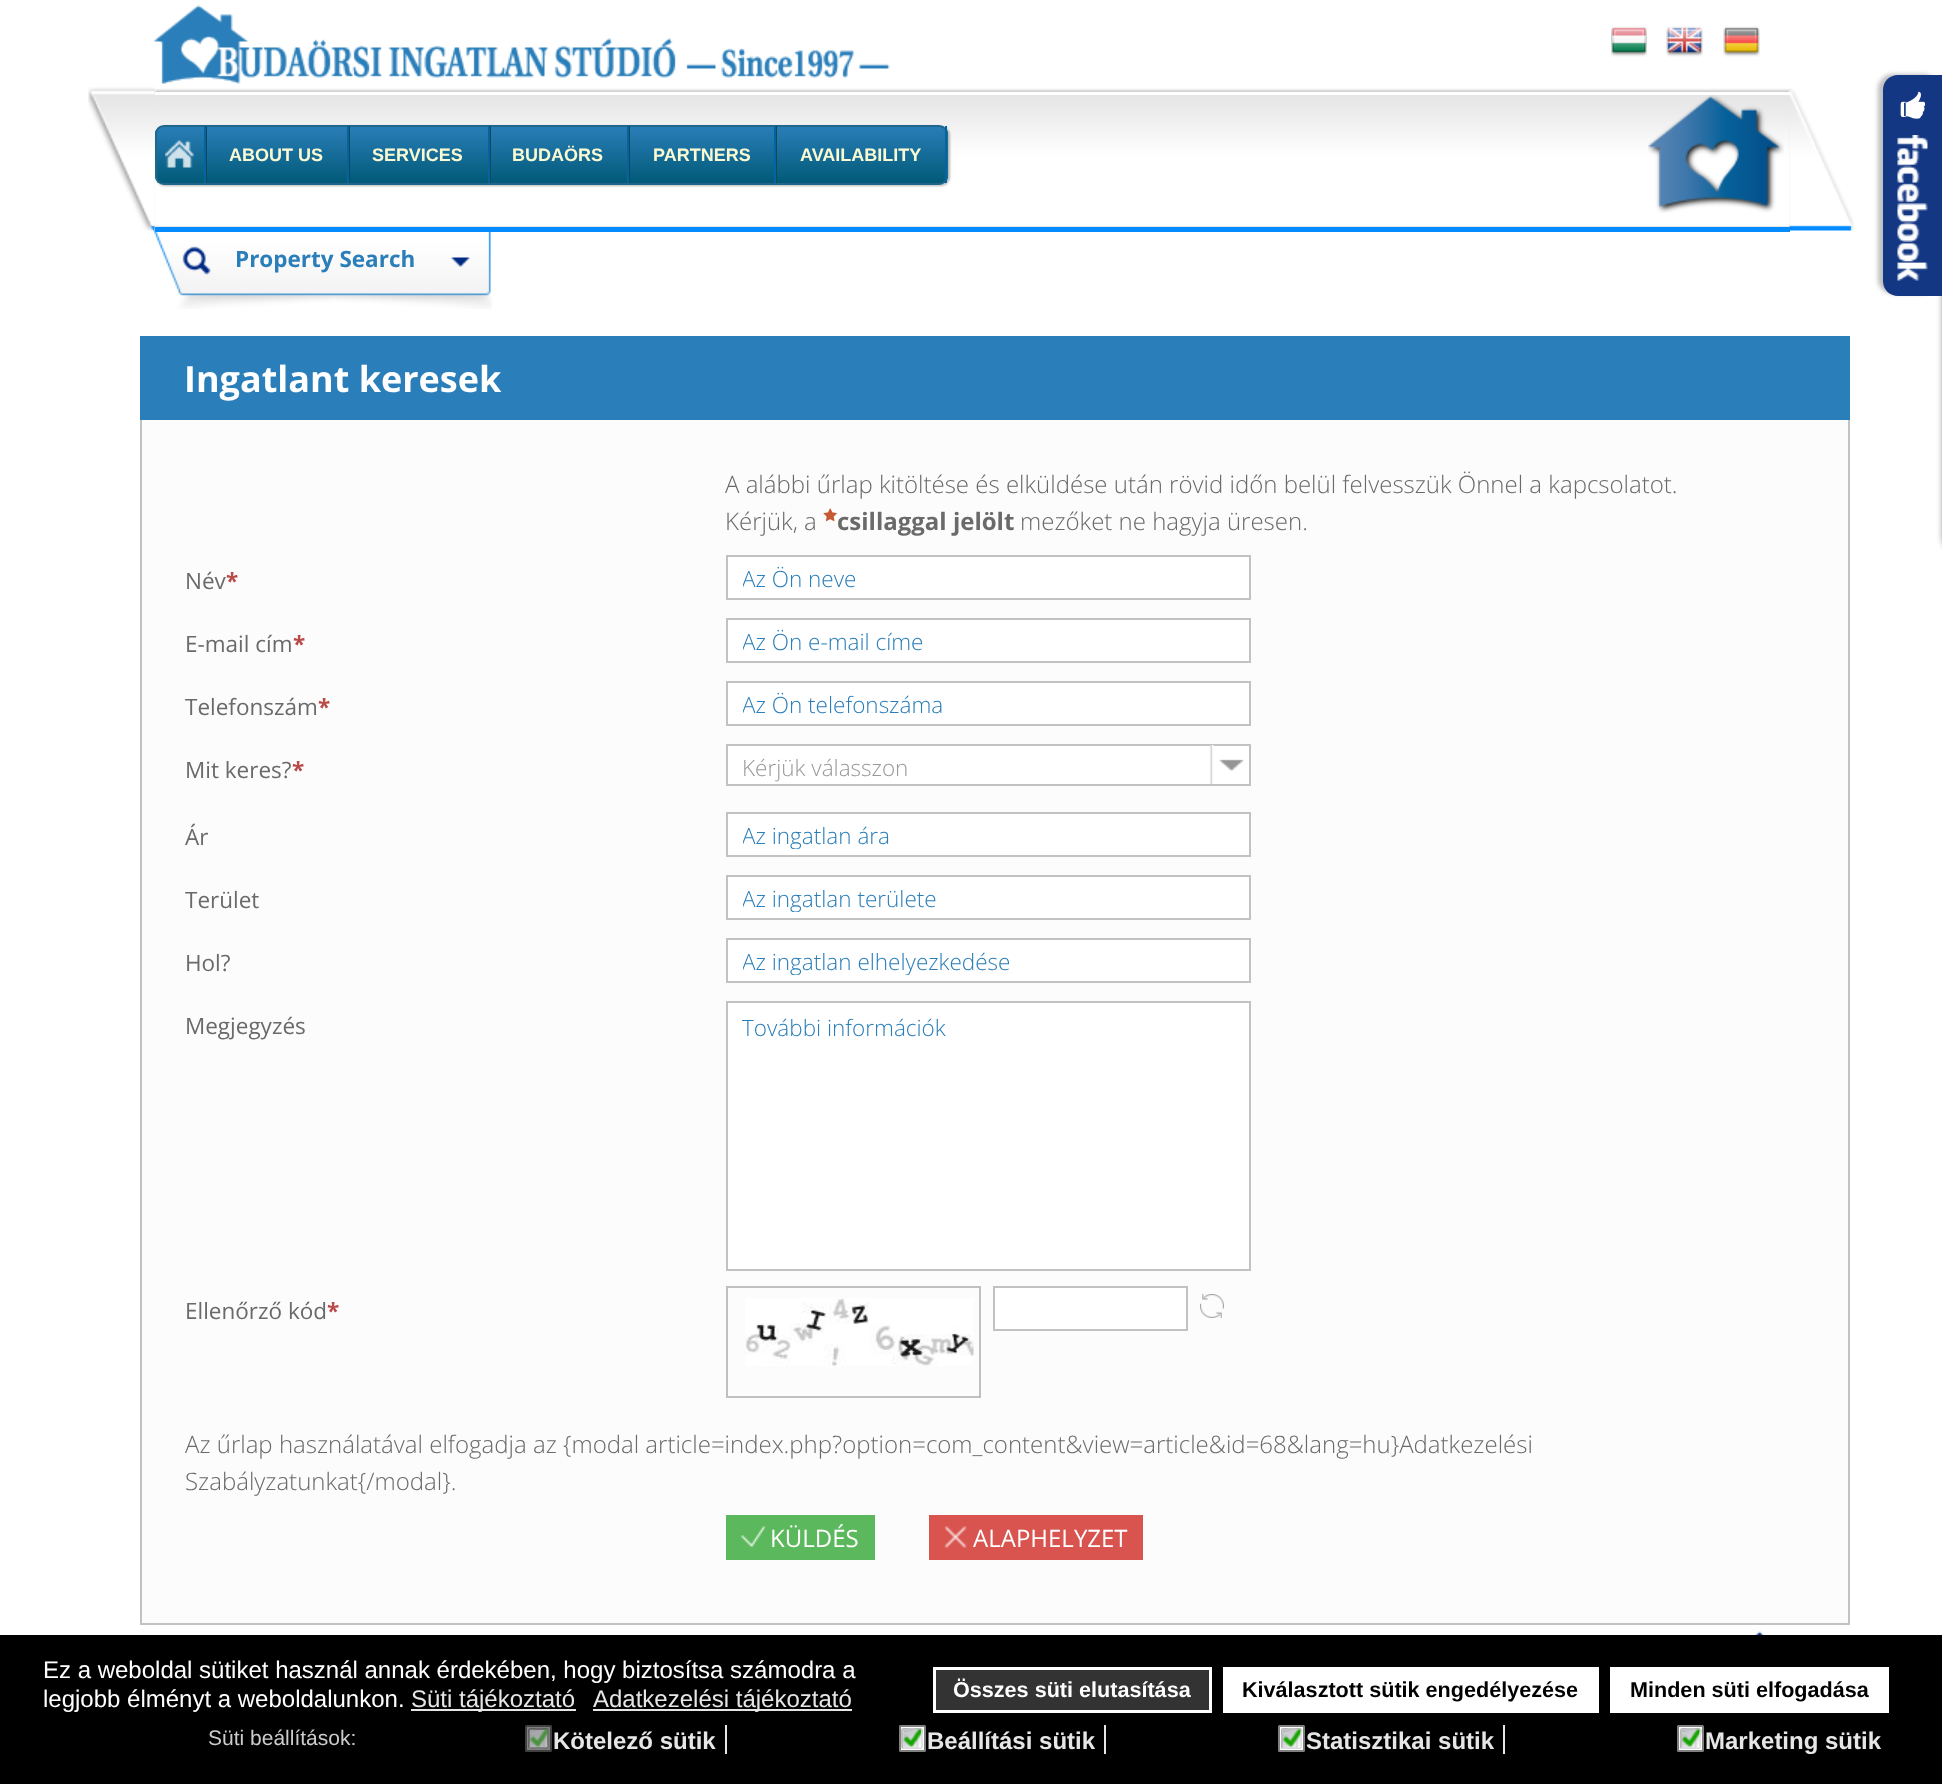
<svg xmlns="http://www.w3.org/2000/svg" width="1942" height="1784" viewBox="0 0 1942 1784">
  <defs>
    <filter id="blur1" x="-50%" y="-200%" width="200%" height="500%"><feGaussianBlur stdDeviation="1"/></filter>
    <clipPath id="clip1"><rect x="155" y="125" width="793" height="60" rx="9"/></clipPath>
    <linearGradient id="g1" gradientUnits="userSpaceOnUse" x1="551" y1="126" x2="551" y2="183"><stop offset="0" stop-color="#2a7eb9"/><stop offset="1" stop-color="#015a77"/></linearGradient>
    <clipPath id="clip2"><rect x="743" y="563" width="492" height="30"/></clipPath>
    <clipPath id="clip3"><rect x="743" y="626" width="492" height="30"/></clipPath>
    <clipPath id="clip4"><rect x="743" y="689" width="492" height="30"/></clipPath>
    <clipPath id="clip5"><rect x="743" y="819" width="492" height="30"/></clipPath>
    <clipPath id="clip6"><rect x="743" y="882" width="492" height="30"/></clipPath>
    <clipPath id="clip7"><rect x="743" y="945" width="492" height="30"/></clipPath>
    <filter id="blur2" x="-50%" y="-200%" width="200%" height="500%"><feGaussianBlur stdDeviation="3"/></filter>
    <filter id="blur3" x="-50%" y="-200%" width="200%" height="500%"><feGaussianBlur stdDeviation="2"/></filter>
  </defs>
  <rect width="100%" height="100%" fill="#ffffff"/>
  <image x="154" y="5" width="736" height="79" href="img1.png"/>
  <image x="153" y="230" width="339" height="79" href="img10.png"/>
  <rect x="155" y="90" width="1635" height="140" fill="#cccccc" filter="url(#blur1)"/>
  <rect x="155" y="95" width="1635" height="132" fill="#e7e7e7"/>
  <image x="154" y="94" width="1636" height="132" href="img2.png"/>
  <rect x="155" y="92" width="1635" height="3" fill="#ffffff"/>
  <rect x="155" y="227" width="1635" height="5" fill="#048bff"/>
  <rect x="156" y="126" width="794" height="60" rx="9" fill="#b4b5b5" filter="url(#blur1)"/>
  <image x="88" y="87" width="67" height="144" href="img3.png"/>
  <image x="1648" y="95" width="136" height="118" href="img4.png"/>
  <image x="1611" y="26" width="36" height="31" href="img5.png"/>
  <image x="1666" y="26" width="37" height="31" href="img6.png"/>
  <image x="1723" y="26" width="37" height="31" href="img7.png"/>
  <g clip-path="url(#clip1)">
    <rect x="155" y="126" width="793" height="57" fill="url(#g1)"/>
  </g>
  <rect x="156" y="126" width="791" height="58" rx="8" fill="none" stroke="#20678b" stroke-width="2"/>
  <rect x="206" y="126" width="1" height="57" fill="#0f4859"/>
  <rect x="204" y="126" width="2" height="57" fill="#0364a2"/>
  <image x="165" y="140" width="29" height="28" href="img8.png"/>
  <rect x="349" y="126" width="1" height="57" fill="#0f4859"/>
  <rect x="347" y="126" width="2" height="57" fill="#0364a2"/>
  <text x="229" y="161" font-family="Liberation Sans" font-size="18" font-weight="bold" fill="#fafad2">ABOUT US</text>
  <rect x="490" y="126" width="1" height="57" fill="#0f4859"/>
  <rect x="488" y="126" width="2" height="57" fill="#0364a2"/>
  <text x="372" y="161" font-family="Liberation Sans" font-size="18" font-weight="bold" fill="#fafad2">SERVICES</text>
  <rect x="629" y="126" width="1" height="57" fill="#0f4859"/>
  <rect x="627" y="126" width="2" height="57" fill="#0364a2"/>
  <text x="512" y="161" font-family="Liberation Sans" font-size="18" font-weight="bold" fill="#fafad2">BUDAÖRS</text>
  <rect x="776" y="126" width="1" height="57" fill="#0f4859"/>
  <rect x="774" y="126" width="2" height="57" fill="#0364a2"/>
  <text x="653" y="161" font-family="Liberation Sans" font-size="18" font-weight="bold" fill="#fafad2">PARTNERS</text>
  <rect x="945" y="126" width="2" height="57" fill="#0364a2"/>
  <text x="800" y="161" font-family="Liberation Sans" font-size="18" font-weight="bold" fill="#fafad2">AVAILABILITY</text>
  <image x="1789" y="88" width="65" height="143" href="img9.png"/>
  <text x="235" y="267" font-family="Open Sans" font-size="22.5" font-weight="bold" fill="#2a7eb9">Property Search</text>
  <rect x="142" y="420" width="1706" height="1203" fill="#fcfcfc"/>
  <rect x="141" y="337" width="1708" height="1287" fill="none" stroke="#c2c2c2" stroke-width="2"/>
  <rect x="140" y="336" width="1710" height="84" fill="#2a7eb9"/>
  <text x="184" y="392" font-family="Open Sans" font-size="36" font-weight="bold" fill="#ffffff">Ingatlant keresek</text>
  <text x="725" y="493" font-family="Open Sans" font-size="24" font-weight="300" fill="#6a6a6a">A alábbi űrlap kitöltése és elküldése után rövid időn belül felvesszük Önnel a kapcsolatot.</text>
  <text x="725" y="530" font-family="Open Sans" font-size="24" font-weight="300" fill="#6a6a6a">Kérjük, a</text>
  <image x="823" y="508" width="14" height="14" href="img11.png"/>
  <text x="837" y="530" font-family="Open Sans" font-size="24" font-weight="bold" fill="#6a6a6a">csillaggal jelölt</text>
  <text x="1020" y="530" font-family="Open Sans" font-size="24" font-weight="300" fill="#6a6a6a">mezőket ne hagyja üresen.</text>
  <text x="185" y="589" font-family="Open Sans" font-size="22.5" fill="#6a6a6a">Név</text>
  <text x="226" y="589" font-family="Open Sans" font-size="22.5" font-weight="bold" fill="#b94a48">*</text>
  <rect x="727" y="556" width="523" height="43" fill="#ffffff" stroke="#c2c2c2" stroke-width="2"/>
  <g clip-path="url(#clip2)">
    <text x="742" y="587" font-family="Open Sans" font-size="22.5" font-weight="300" fill="#2a7eb9">Az Ön neve</text>
  </g>
  <text x="185" y="652" font-family="Open Sans" font-size="22.5" fill="#6a6a6a">E-mail cím</text>
  <text x="293" y="652" font-family="Open Sans" font-size="22.5" font-weight="bold" fill="#b94a48">*</text>
  <rect x="727" y="619" width="523" height="43" fill="#ffffff" stroke="#c2c2c2" stroke-width="2"/>
  <g clip-path="url(#clip3)">
    <text x="742" y="650" font-family="Open Sans" font-size="22.5" font-weight="300" fill="#2a7eb9">Az Ön e-mail címe</text>
  </g>
  <text x="185" y="715" font-family="Open Sans" font-size="22.5" fill="#6a6a6a">Telefonszám</text>
  <text x="318" y="715" font-family="Open Sans" font-size="22.5" font-weight="bold" fill="#b94a48">*</text>
  <rect x="727" y="682" width="523" height="43" fill="#ffffff" stroke="#c2c2c2" stroke-width="2"/>
  <g clip-path="url(#clip4)">
    <text x="742" y="713" font-family="Open Sans" font-size="22.5" font-weight="300" fill="#2a7eb9">Az Ön telefonszáma</text>
  </g>
  <text x="185" y="778" font-family="Open Sans" font-size="22.5" fill="#6a6a6a">Mit keres?</text>
  <text x="292" y="778" font-family="Open Sans" font-size="22.5" font-weight="bold" fill="#b94a48">*</text>
  <rect x="727" y="745" width="523" height="40" fill="#ffffff" stroke="#c2c2c2" stroke-width="2"/>
  <text x="742" y="776" font-family="Open Sans" font-size="22.5" font-weight="300" fill="#999999">Kérjük válasszon</text>
  <image x="1210" y="745" width="34" height="39" href="img12.png"/>
  <text x="185" y="845" font-family="Open Sans" font-size="22.5" fill="#6a6a6a">Ár</text>
  <rect x="727" y="813" width="523" height="43" fill="#ffffff" stroke="#c2c2c2" stroke-width="2"/>
  <g clip-path="url(#clip5)">
    <text x="742" y="844" font-family="Open Sans" font-size="22.5" font-weight="300" fill="#2a7eb9">Az ingatlan ára</text>
  </g>
  <text x="185" y="908" font-family="Open Sans" font-size="22.5" fill="#6a6a6a">Terület</text>
  <rect x="727" y="876" width="523" height="43" fill="#ffffff" stroke="#c2c2c2" stroke-width="2"/>
  <g clip-path="url(#clip6)">
    <text x="742" y="907" font-family="Open Sans" font-size="22.5" font-weight="300" fill="#2a7eb9">Az ingatlan területe</text>
  </g>
  <text x="185" y="971" font-family="Open Sans" font-size="22.5" fill="#6a6a6a">Hol?</text>
  <rect x="727" y="939" width="523" height="43" fill="#ffffff" stroke="#c2c2c2" stroke-width="2"/>
  <g clip-path="url(#clip7)">
    <text x="742" y="970" font-family="Open Sans" font-size="22.5" font-weight="300" fill="#2a7eb9">Az ingatlan elhelyezkedése</text>
  </g>
  <text x="185" y="1034" font-family="Open Sans" font-size="22.5" fill="#6a6a6a">Megjegyzés</text>
  <rect x="727" y="1002" width="523" height="268" fill="#ffffff" stroke="#c2c2c2" stroke-width="2"/>
  <text x="742" y="1036" font-family="Open Sans" font-size="22.5" font-weight="300" fill="#2a7eb9">További információk</text>
  <text x="185" y="1319" font-family="Open Sans" font-size="22.5" fill="#6a6a6a">Ellenőrző kód</text>
  <text x="327" y="1319" font-family="Open Sans" font-size="22.5" font-weight="bold" fill="#b94a48">*</text>
  <rect x="727" y="1287" width="253" height="110" fill="none" stroke="#c0c0c0" stroke-width="2"/>
  <image x="745" y="1298" width="229" height="68" href="img13.png"/>
  <rect x="994" y="1287" width="193" height="43" fill="#ffffff" stroke="#c2c2c2" stroke-width="2"/>
  <image x="1200" y="1294" width="24" height="24" href="img14.png"/>
  <text x="185" y="1453" font-family="Open Sans" font-size="24" font-weight="300" fill="#6a6a6a">Az űrlap használatával elfogadja az {modal article=index.php?option=com_content&amp;view=article&amp;id=68&amp;lang=hu}Adatkezelési</text>
  <text x="185" y="1490" font-family="Open Sans" font-size="24" font-weight="300" fill="#6a6a6a">Szabályzatunkat{/modal}.</text>
  <rect x="726" y="1515" width="149" height="45" fill="#5cb85c"/>
  <image x="741" y="1526" width="24" height="22" href="img15.png"/>
  <text x="770" y="1547" font-family="Open Sans" font-size="24" fill="#ffffff">KÜLDÉS</text>
  <rect x="929" y="1515" width="214" height="45" fill="#d9534f"/>
  <image x="944" y="1526" width="23" height="22" href="img16.png"/>
  <text x="973" y="1547" font-family="Open Sans" font-size="24" fill="#ffffff">ALAPHELYZET</text>
  <image x="1755" y="1631" width="9" height="4" href="img17.png"/>
  <rect x="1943" y="75" width="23" height="476" rx="15" fill="#000000" fill-opacity="0.5" filter="url(#blur2)"/>
  <rect x="1878" y="74" width="60" height="220" rx="15" fill="#000000" fill-opacity="0.25" filter="url(#blur3)"/>
  <path d="M1898 75H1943V296H1898C1889.5 296 1883 289.5 1883 281V90C1883 81.5 1889.5 75 1898 75Z" fill="#133783"/>
  <image x="1900" y="91" width="26" height="28" href="img18.png"/>
  <image x="1897" y="135" width="31" height="146" href="img19.png"/>
  <rect x="0" y="1635" width="1942" height="149" fill="#000000"/>
  <text x="43" y="1678" font-family="Liberation Sans" font-size="24" fill="#ffffff">Ez a weboldal sütiket használ annak érdekében, hogy biztosítsa számodra a</text>
  <text x="43" y="1707" font-family="Liberation Sans" font-size="24" fill="#ffffff">legjobb élményt a weboldalunkon.</text>
  <rect x="411" y="1709" width="165" height="2" fill="#e6e6e6"/>
  <text x="411" y="1707" font-family="Liberation Sans" font-size="24" fill="#e6e6e6">Süti tájékoztató</text>
  <rect x="593" y="1709" width="259" height="2" fill="#e6e6e6"/>
  <text x="593" y="1707" font-family="Liberation Sans" font-size="24" fill="#e6e6e6">Adatkezelési tájékoztató</text>
  <rect x="934.5" y="1668.5" width="276" height="43" fill="#333333" stroke="#ffffff" stroke-width="3"/>
  <text x="953" y="1697" font-family="Liberation Sans" font-size="21.6" font-weight="bold" fill="#ffffff">Összes süti elutasítása</text>
  <rect x="1223" y="1667" width="376" height="46" fill="#ffffff"/>
  <text x="1242" y="1697" font-family="Liberation Sans" font-size="21.6" font-weight="bold" fill="#000000">Kiválasztott sütik engedélyezése</text>
  <rect x="1610" y="1667" width="279" height="46" fill="#ffffff"/>
  <text x="1630" y="1697" font-family="Liberation Sans" font-size="21.6" font-weight="bold" fill="#000000">Minden süti elfogadása</text>
  <text x="208" y="1745" font-family="Liberation Sans" font-size="21" fill="#cccccc">Süti beállítások:</text>
  <rect x="526" y="1726" width="25" height="25" rx="0.5" fill="#808080" stroke="#404040" stroke-width="2"/>
  <image x="527" y="1728" width="23" height="21" href="img20.png"/>
  <path d="M548 1729C548.5 1729.5 548 1737 548 1738.5C548 1751 551 1748 538.5 1748C537 1748 529.5 1748.5 529 1748" fill="none" stroke="#6e6f6f" stroke-width="1.5"/>
  <path d="M529 1748C528.5 1747.5 529 1740 529 1738.5C529 1726 526 1729 538.5 1729C540 1729 547.5 1728.5 548 1729" fill="none" stroke="#5a5a5a" stroke-width="1.5"/>
  <rect x="725" y="1725" width="2" height="29" fill="#e6e6e6"/>
  <text x="553" y="1749" font-family="Liberation Sans" font-size="24" font-weight="bold" fill="#e6e6e6">Kötelező sütik</text>
  <rect x="900" y="1726" width="25" height="25" rx="0.5" fill="#ffffff" stroke="#808080" stroke-width="2"/>
  <image x="901" y="1728" width="22" height="21" href="img21.png"/>
  <path d="M921.5 1729C922 1729.5 922 1737 922 1738.5C922 1751 924.5 1748 912 1748C910.5 1748 903 1748.5 902.5 1748" fill="none" stroke="#dcddde" stroke-width="1.5"/>
  <path d="M902.5 1748C902 1747.5 902 1740 902 1738.5C902 1726 899.5 1729 912 1729C913.5 1729 921 1728.5 921.5 1729" fill="none" stroke="#b3b3b3" stroke-width="1.5"/>
  <rect x="1104" y="1725" width="2" height="29" fill="#e6e6e6"/>
  <text x="927" y="1749" font-family="Liberation Sans" font-size="24" font-weight="bold" fill="#e6e6e6">Beállítási sütik</text>
  <rect x="1279" y="1726" width="25" height="25" rx="0.5" fill="#ffffff" stroke="#808080" stroke-width="2"/>
  <image x="1280" y="1728" width="23" height="21" href="img22.png"/>
  <path d="M1301 1729C1301.5 1729.5 1301 1737 1301 1738.5C1301 1751 1304 1748 1291.5 1748C1290 1748 1282.5 1748.5 1282 1748" fill="none" stroke="#dcddde" stroke-width="1.5"/>
  <path d="M1282 1748C1281.5 1747.5 1282 1740 1282 1738.5C1282 1726 1279 1729 1291.5 1729C1293 1729 1300.5 1728.5 1301 1729" fill="none" stroke="#b3b3b3" stroke-width="1.5"/>
  <rect x="1503" y="1725" width="2" height="29" fill="#e6e6e6"/>
  <text x="1306" y="1749" font-family="Liberation Sans" font-size="24" font-weight="bold" fill="#e6e6e6">Statisztikai sütik</text>
  <rect x="1678" y="1726" width="25" height="25" rx="0.5" fill="#ffffff" stroke="#808080" stroke-width="2"/>
  <image x="1679" y="1728" width="23" height="21" href="img23.png"/>
  <path d="M1700 1729C1700.5 1729.5 1700 1737 1700 1738.5C1700 1751 1703 1748 1690.5 1748C1689 1748 1681.5 1748.5 1681 1748" fill="none" stroke="#dcddde" stroke-width="1.5"/>
  <path d="M1681 1748C1680.5 1747.5 1681 1740 1681 1738.5C1681 1726 1678 1729 1690.5 1729C1692 1729 1699.5 1728.5 1700 1729" fill="none" stroke="#b3b3b3" stroke-width="1.5"/>
  <text x="1705" y="1749" font-family="Liberation Sans" font-size="24" font-weight="bold" fill="#e6e6e6">Marketing sütik</text>
</svg>
